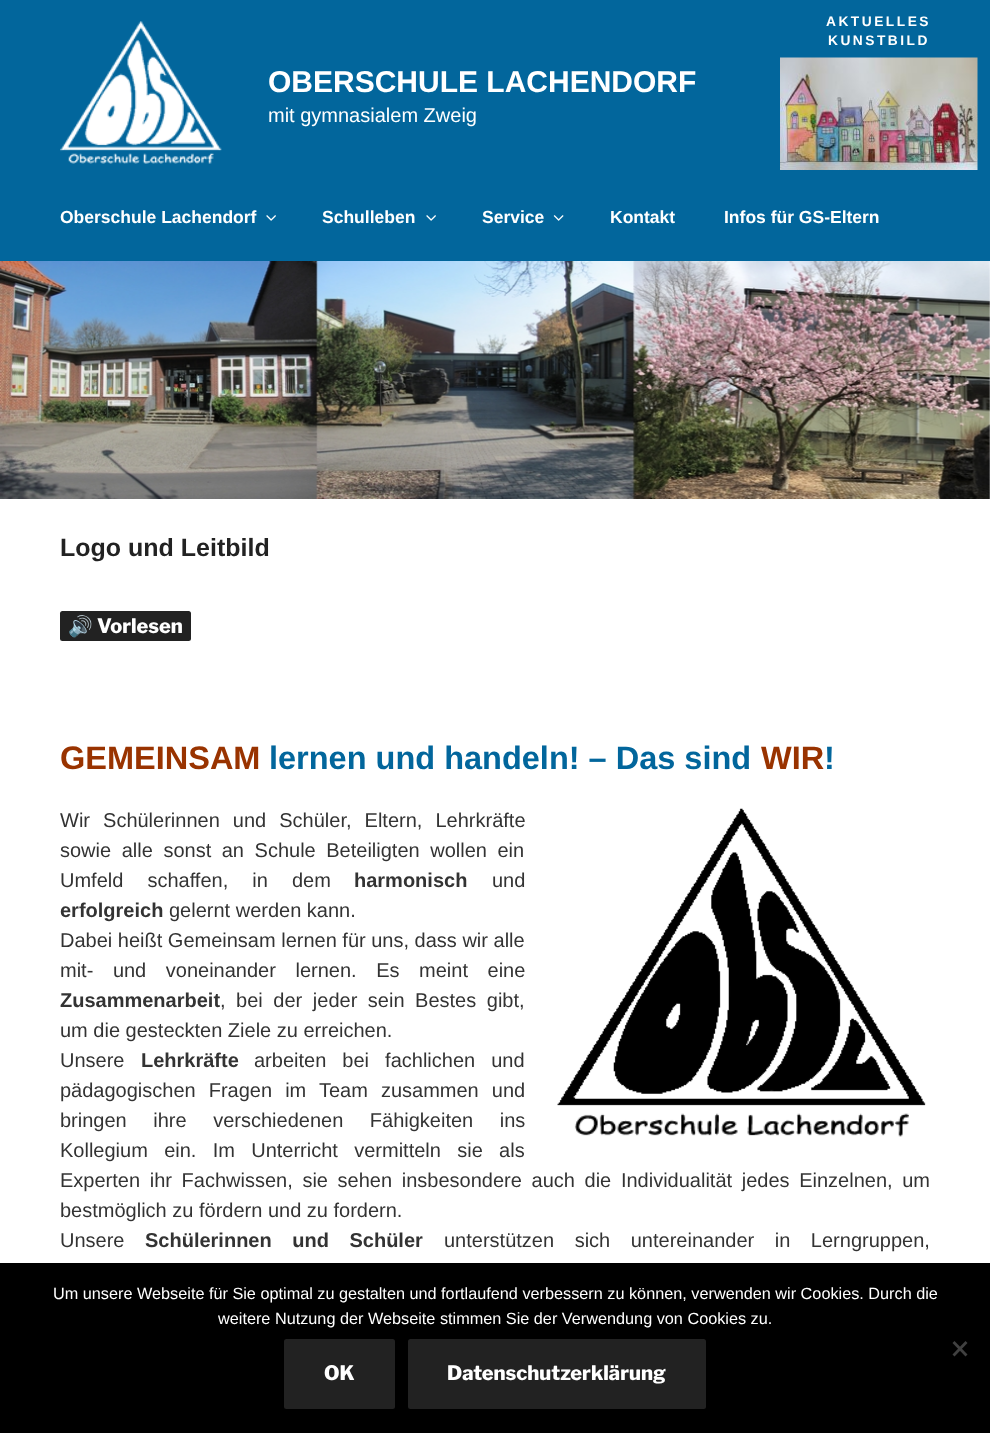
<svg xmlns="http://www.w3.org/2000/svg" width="990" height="1433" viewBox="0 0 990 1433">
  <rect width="100%" height="100%" fill="#ffffff"/>
  <rect x="0" y="0" width="990" height="261" fill="#02669c"/>
  <text x="826" y="26" font-family="Liberation Sans" font-size="13.75" font-weight="bold" letter-spacing="2.5" fill="#ffffff">AKTUELLES</text>
  <text x="828" y="45" font-family="Liberation Sans" font-size="13.75" font-weight="bold" letter-spacing="2.5" fill="#ffffff">KUNSTBILD</text>
  <image x="780" y="57" width="198" height="113" href="img1.png"/>
  <image x="60" y="21" width="162" height="143" href="img2.png"/>
  <text x="268" y="92" font-family="Liberation Sans" font-size="30" font-weight="bold" fill="#ffffff">OBERSCHULE LACHENDORF</text>
  <text x="268" y="122" font-family="Liberation Sans" font-size="20" fill="#ffffff">mit gymnasialem Zweig</text>
  <text x="60" y="223" font-family="Liberation Sans" font-size="17.5" font-weight="bold" fill="#ffffff">Oberschule Lachendorf</text>
  <image x="266" y="215" width="10" height="6" href="img3.png"/>
  <text x="322" y="223" font-family="Liberation Sans" font-size="17.5" font-weight="bold" fill="#ffffff">Schulleben</text>
  <image x="426" y="215" width="10" height="6" href="img3.png"/>
  <text x="482" y="223" font-family="Liberation Sans" font-size="17.5" font-weight="bold" fill="#ffffff">Service</text>
  <image x="553" y="215" width="11" height="6" href="img4.png"/>
  <text x="610" y="223" font-family="Liberation Sans" font-size="17.5" font-weight="bold" fill="#ffffff">Kontakt</text>
  <text x="724" y="223" font-family="Liberation Sans" font-size="17.5" font-weight="bold" fill="#ffffff">Infos für GS-Eltern</text>
  <image x="0" y="261" width="990" height="238" href="img5.png"/>
  <text x="60" y="556" font-family="Liberation Sans" font-size="25" font-weight="bold" fill="#222222">Logo und Leitbild</text>
  <rect x="60" y="611" width="131" height="30" rx="2.5" fill="#222222"/>
  <text x="68" y="633" font-family="Noto Color Emoji" font-size="20" font-weight="bold" fill="#ffffff">🔊</text>
  <text x="97" y="633" font-family="Libre Franklin" font-size="20" font-weight="100" fill="#ffffff">Vorlesen</text>
  <text x="60" y="769" font-family="Liberation Sans" font-size="32.5" font-weight="bold" fill="#993300">GEMEINSAM</text>
  <text x="269" y="769" font-family="Liberation Sans" font-size="32.5" font-weight="bold" fill="#02669c">lernen und handeln! – Das sind</text>
  <text x="761" y="769" font-family="Liberation Sans" font-size="32.5" font-weight="bold" fill="#993300">WIR</text>
  <text x="824" y="769" font-family="Liberation Sans" font-size="32.5" font-weight="bold" fill="#02669c">!</text>
  <text x="60" y="827" word-spacing="7.5" font-family="Liberation Sans" font-size="20" fill="#333333">Wir Schülerinnen und Schüler, Eltern, Lehrkräfte</text>
  <image x="557" y="808" width="369" height="329" href="img6.png"/>
  <text x="60" y="857" word-spacing="5" font-family="Liberation Sans" font-size="20" fill="#333333">sowie alle sonst an Schule Beteiligten wollen ein</text>
  <text x="60" y="887" word-spacing="18.5" font-family="Liberation Sans" font-size="20" fill="#333333">Umfeld schaffen, in dem</text>
  <text x="354" y="887" font-family="Liberation Sans" font-size="20" font-weight="bold" fill="#333333">harmonisch</text>
  <text x="492" y="887" font-family="Liberation Sans" font-size="20" fill="#333333">und</text>
  <text x="60" y="917" font-family="Liberation Sans" font-size="20" font-weight="bold" fill="#333333">erfolgreich</text>
  <text x="169" y="917" font-family="Liberation Sans" font-size="20" fill="#333333">gelernt werden kann.</text>
  <text x="60" y="947" font-family="Liberation Sans" font-size="20" fill="#333333">Dabei heißt Gemeinsam lernen für uns, dass wir alle</text>
  <text x="60" y="977" word-spacing="14" font-family="Liberation Sans" font-size="20" fill="#333333">mit- und voneinander lernen. Es meint eine</text>
  <text x="60" y="1007" font-family="Liberation Sans" font-size="20" font-weight="bold" fill="#333333">Zusammenarbeit</text>
  <text x="220" y="1007" word-spacing="5" font-family="Liberation Sans" font-size="20" fill="#333333">, bei der jeder sein Bestes gibt,</text>
  <text x="60" y="1037" font-family="Liberation Sans" font-size="20" fill="#333333">um die gesteckten Ziele zu erreichen.</text>
  <text x="60" y="1067" font-family="Liberation Sans" font-size="20" fill="#333333">Unsere</text>
  <text x="141" y="1067" font-family="Liberation Sans" font-size="20" font-weight="bold" fill="#333333">Lehrkräfte</text>
  <text x="254" y="1067" word-spacing="10.5" font-family="Liberation Sans" font-size="20" fill="#333333">arbeiten bei fachlichen und</text>
  <text x="60" y="1097" word-spacing="7.5" font-family="Liberation Sans" font-size="20" fill="#333333">pädagogischen Fragen im Team zusammen und</text>
  <text x="60" y="1127" word-spacing="21" font-family="Liberation Sans" font-size="20" fill="#333333">bringen ihre verschiedenen Fähigkeiten ins</text>
  <text x="60" y="1157" word-spacing="10.75" font-family="Liberation Sans" font-size="20" fill="#333333">Kollegium ein. Im Unterricht vermitteln sie als</text>
  <text x="60" y="1187" word-spacing="4.1" font-family="Liberation Sans" font-size="20" fill="#333333">Experten ihr Fachwissen, sie sehen insbesondere auch die Individualität jedes Einzelnen, um</text>
  <text x="60" y="1217" font-family="Liberation Sans" font-size="20" fill="#333333">bestmöglich zu fördern und zu fordern.</text>
  <text x="60" y="1247" font-family="Liberation Sans" font-size="20" fill="#333333">Unsere</text>
  <text x="145" y="1247" word-spacing="15" font-family="Liberation Sans" font-size="20" font-weight="bold" fill="#333333">Schülerinnen und Schüler</text>
  <text x="444" y="1247" word-spacing="15" font-family="Liberation Sans" font-size="20" fill="#333333">unterstützen sich untereinander in Lerngruppen,</text>
  <rect x="0" y="1263" width="990" height="170" fill="#000000"/>
  <text x="53" y="1299" font-family="Liberation Sans" font-size="16.25" fill="#ffffff">Um unsere Webseite für Sie optimal zu gestalten und fortlaufend verbessern zu können, verwenden wir Cookies. Durch die</text>
  <text x="218" y="1324" font-family="Liberation Sans" font-size="16.25" fill="#ffffff">weitere Nutzung der Webseite stimmen Sie der Verwendung von Cookies zu.</text>
  <path d="M965.5 1341L967.5 1343L954.5 1356.5L952.5 1354.5Z" fill="#404040"/>
  <path d="M952.5 1343L954.5 1341L967.5 1354.5L965.5 1356.5Z" fill="#404040"/>
  <rect x="284" y="1339" width="111" height="70" rx="2.5" fill="#222222"/>
  <text x="324" y="1380" font-family="Libre Franklin" font-size="20" font-weight="100" fill="#ffffff">OK</text>
  <rect x="408" y="1339" width="298" height="70" rx="2.5" fill="#222222"/>
  <text x="447" y="1380" font-family="Libre Franklin" font-size="20" font-weight="100" fill="#ffffff">Datenschutzerklärung</text>
</svg>
